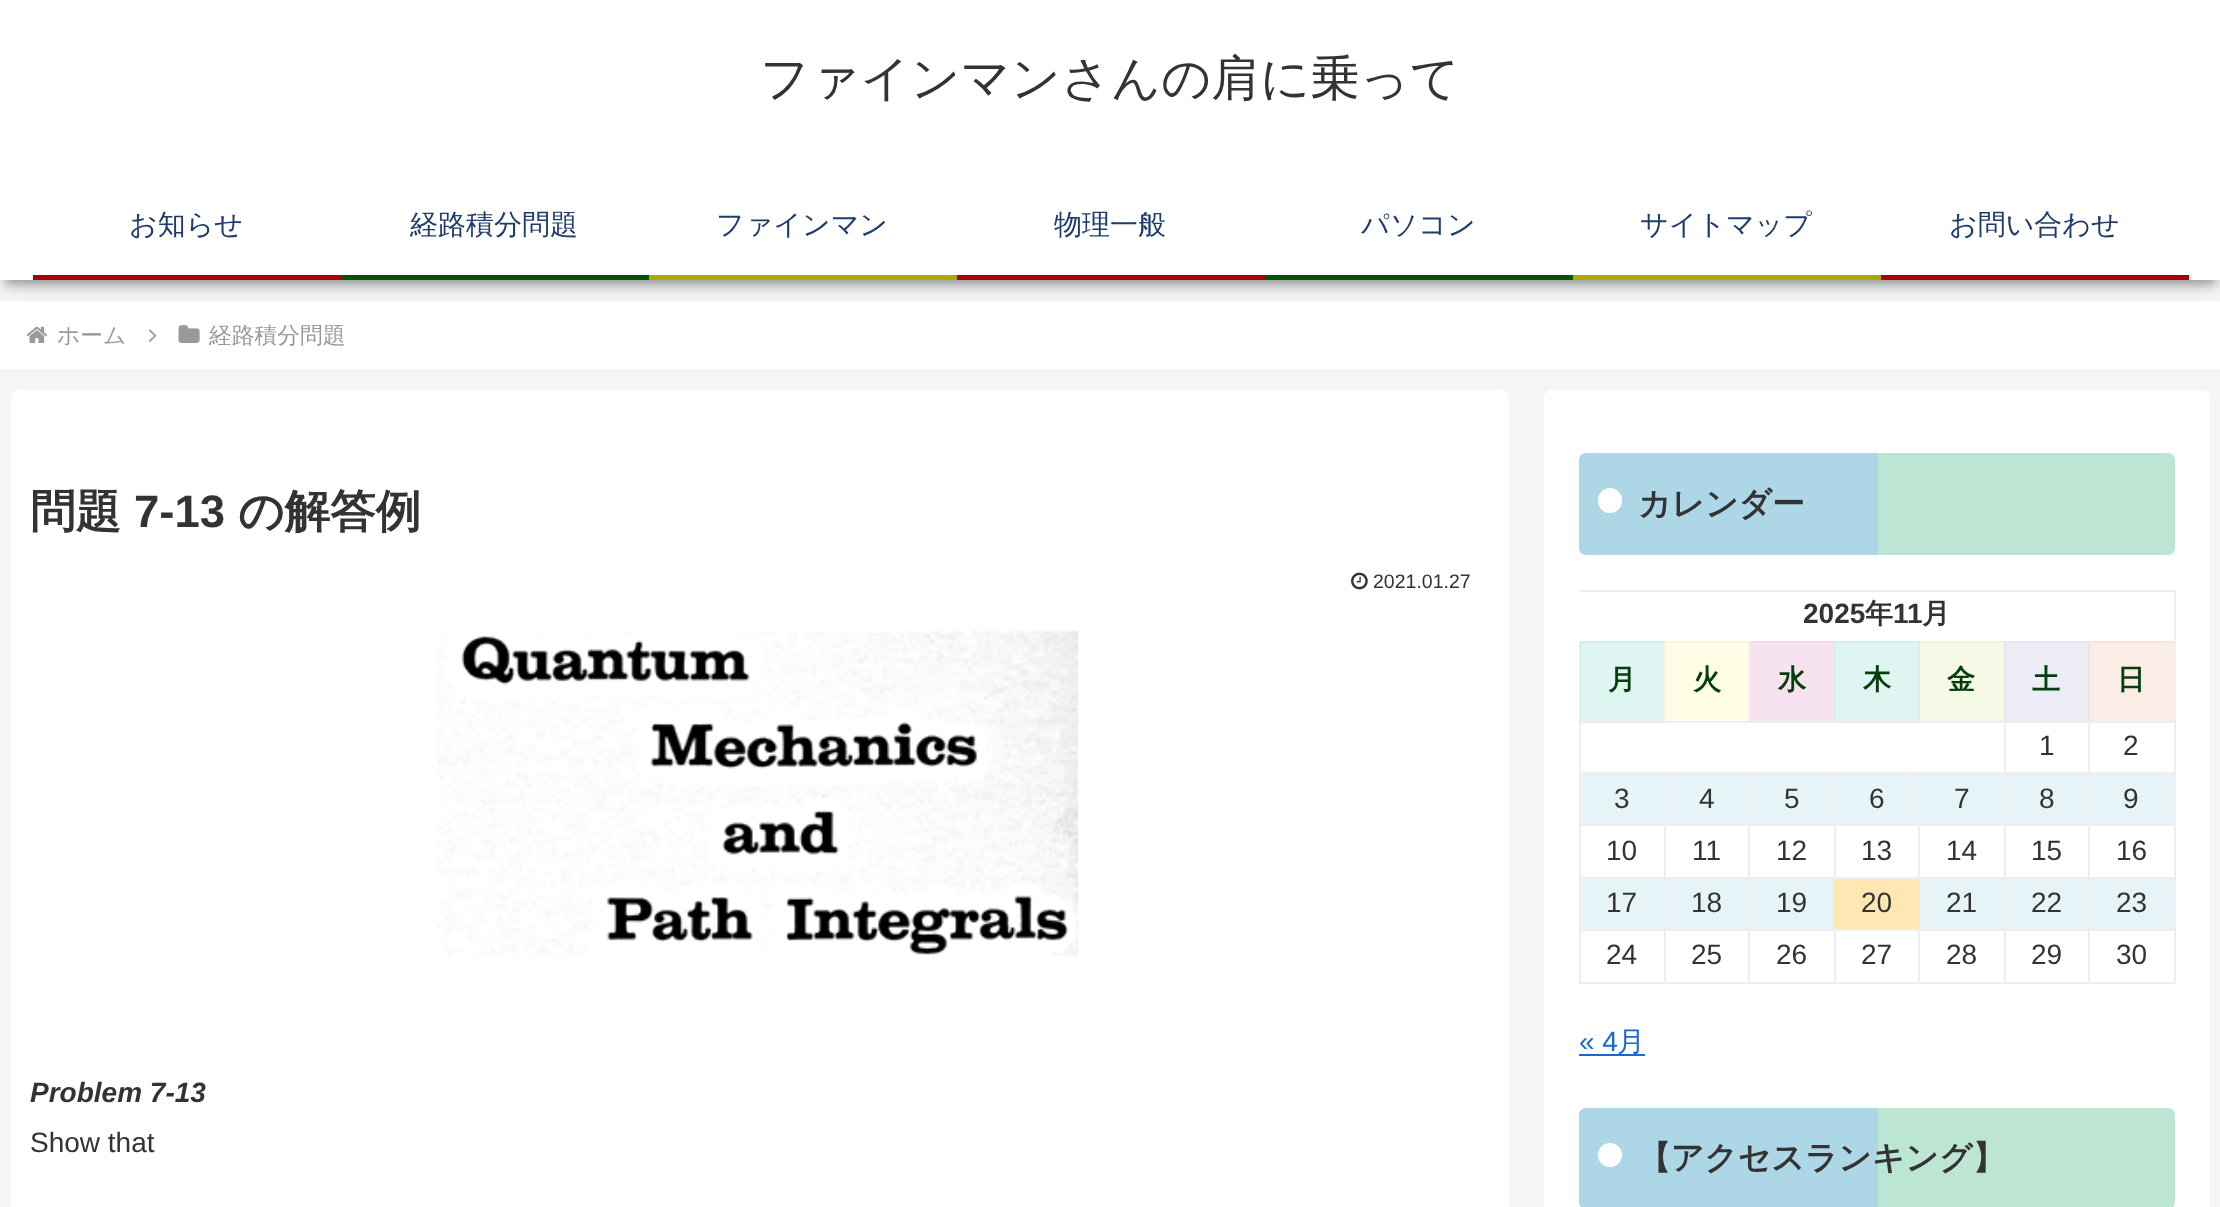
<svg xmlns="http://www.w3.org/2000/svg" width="2220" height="1207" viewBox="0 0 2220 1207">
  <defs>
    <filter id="blur1" x="-50%" y="-200%" width="200%" height="500%"><feGaussianBlur stdDeviation="9"/></filter>
    <filter id="blur2" x="-50%" y="-200%" width="200%" height="500%"><feGaussianBlur stdDeviation="4.5"/></filter>
  </defs>
  <rect width="100%" height="100%" fill="#f4f5f7"/>
  <rect x="5" y="16" width="2211" height="269" fill="#000000" fill-opacity="0.18" filter="url(#blur1)"/>
  <rect x="5" y="16" width="2211" height="269" fill="#000000" fill-opacity="0.24" filter="url(#blur2)"/>
  <rect x="0" y="0" width="2220" height="280" fill="#ffffff"/>
  <text x="760" y="95" font-family="WenQuanYi Zen Hei" font-size="49" font-weight="500" fill="#333333">ファインマンさんの肩に乗って</text>
  <rect x="33" y="275" width="308" height="5" fill="#aa0000"/>
  <text x="129" y="234" font-family="WenQuanYi Zen Hei" font-size="28" font-weight="500" fill="#1f3c6a">お知らせ</text>
  <rect x="341" y="275" width="308" height="5" fill="#005500"/>
  <text x="410" y="234" font-family="WenQuanYi Zen Hei" font-size="28" font-weight="500" fill="#1f3c6a">経路積分問題</text>
  <rect x="649" y="275" width="308" height="5" fill="#aaaa00"/>
  <text x="716" y="234" font-family="WenQuanYi Zen Hei" font-size="28" font-weight="500" fill="#1f3c6a">ファインマン</text>
  <rect x="957" y="275" width="308" height="5" fill="#aa0000"/>
  <text x="1054" y="234" font-family="WenQuanYi Zen Hei" font-size="28" font-weight="500" fill="#1f3c6a">物理一般</text>
  <rect x="1265" y="275" width="308" height="5" fill="#005500"/>
  <text x="1361" y="234" font-family="WenQuanYi Zen Hei" font-size="28" font-weight="500" fill="#1f3c6a">パソコン</text>
  <rect x="1573" y="275" width="308" height="5" fill="#aaaa00"/>
  <text x="1640" y="234" font-family="WenQuanYi Zen Hei" font-size="28" font-weight="500" fill="#1f3c6a">サイトマップ</text>
  <rect x="1881" y="275" width="308" height="5" fill="#aa0000"/>
  <text x="1949" y="234" font-family="WenQuanYi Zen Hei" font-size="28" font-weight="500" fill="#1f3c6a">お問い合わせ</text>
  <rect x="0" y="301" width="2220" height="68" fill="#ffffff"/>
  <image x="26" y="326" width="21" height="17" href="img1.png"/>
  <text x="57" y="343" font-family="WenQuanYi Zen Hei" font-size="22.75" font-weight="500" fill="#999999">ホーム</text>
  <image x="149" y="329" width="8" height="13" href="img2.png"/>
  <image x="178" y="325" width="22" height="18" href="img3.png"/>
  <text x="209" y="343" font-family="WenQuanYi Zen Hei" font-size="22.75" font-weight="500" fill="#999999">経路積分問題</text>
  <rect x="11" y="390" width="1498" height="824" rx="7" fill="#ffffff"/>
  <text x="30" y="527" font-family="WenQuanYi Zen Hei" font-size="45.5" font-weight="bold" fill="#333333">問題</text>
  <text x="134" y="527" font-family="Liberation Sans" font-size="45.5" font-weight="bold" fill="#333333">7-13</text>
  <text x="238" y="527" font-family="WenQuanYi Zen Hei" font-size="45.5" font-weight="bold" fill="#333333">の解答例</text>
  <image x="1351" y="572" width="17" height="18" href="img4.png"/>
  <text x="1373" y="588" font-family="Liberation Sans" font-size="19.5" fill="#333333">2021.01.27</text>
  <image x="437" y="630" width="642" height="327" href="img5.png"/>
  <text x="30" y="1102" font-family="Liberation Sans" font-size="28" font-weight="bold" font-style="italic" fill="#333333">Problem 7-13</text>
  <text x="30" y="1152" font-family="Liberation Sans" font-size="28" fill="#333333">Show that</text>
  <rect x="1544" y="390" width="666" height="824" rx="7" fill="#ffffff"/>
  <rect x="2090" y="643" width="84" height="78" fill="#fbece6"/>
  <rect x="2006" y="643" width="82" height="78" fill="#ebecf5"/>
  <rect x="1920" y="643" width="84" height="78" fill="#f5f9e5"/>
  <rect x="1836" y="643" width="82" height="78" fill="#def5f2"/>
  <rect x="1750" y="643" width="84" height="78" fill="#f6e3ef"/>
  <rect x="1666" y="643" width="82" height="78" fill="#fffde6"/>
  <rect x="1581" y="643" width="83" height="78" fill="#def5f2"/>
  <rect x="1579" y="453" width="596" height="102" rx="7" fill="#f5f6f7"/>
  <path d="M1586 453H1878V555H1586C1582 555 1579 552 1579 548V460C1579 456 1582 453 1586 453Z" fill="#088cc0" fill-opacity="0.3"/>
  <path d="M1878 453H2168C2172 453 2175 456 2175 460V548C2175 552 2172 555 2168 555H1878Z" fill="#39bc80" fill-opacity="0.3"/>
  <rect x="1598" y="488" width="24" height="25" rx="12" fill="#ffffff"/>
  <text x="1638" y="515" font-family="WenQuanYi Zen Hei" font-size="32.75" font-weight="bold" fill="#333333">カレンダー</text>
  <rect x="1579" y="590" width="596" height="2" fill="#eeeeee"/>
  <rect x="2174" y="590" width="2" height="394" fill="#eeeeee"/>
  <text x="1803" y="623" font-family="Liberation Sans" font-size="28" font-weight="bold" fill="#333333">2025</text>
  <text x="1865" y="623" font-family="WenQuanYi Zen Hei" font-size="28" font-weight="bold" fill="#333333">年</text>
  <text x="1893" y="623" font-family="Liberation Sans" font-size="28" font-weight="bold" fill="#333333">11</text>
  <text x="1922" y="623" font-family="WenQuanYi Zen Hei" font-size="28" font-weight="bold" fill="#333333">月</text>
  <rect x="1580" y="641" width="84" height="2" fill="#d7efec"/>
  <rect x="2088" y="721" width="87" height="2" fill="#eeeeee"/>
  <rect x="2088" y="772" width="87" height="2" fill="#eeeeee"/>
  <rect x="1581" y="774" width="593" height="50" fill="#e6f3f7"/>
  <rect x="2088" y="824" width="87" height="2" fill="#eeeeee"/>
  <rect x="2088" y="877" width="87" height="2" fill="#eeeeee"/>
  <rect x="1581" y="879" width="593" height="50" fill="#e6f3f7"/>
  <rect x="2088" y="929" width="87" height="2" fill="#eeeeee"/>
  <rect x="2088" y="982" width="87" height="2" fill="#eeeeee"/>
  <rect x="2088" y="929" width="2" height="55" fill="#eeeeee"/>
  <rect x="2004" y="929" width="86" height="2" fill="#eeeeee"/>
  <rect x="2088" y="877" width="2" height="54" fill="#eeeeee"/>
  <rect x="2004" y="877" width="86" height="2" fill="#eeeeee"/>
  <rect x="2088" y="824" width="2" height="55" fill="#eeeeee"/>
  <rect x="2004" y="824" width="86" height="2" fill="#eeeeee"/>
  <rect x="2088" y="772" width="2" height="54" fill="#eeeeee"/>
  <rect x="2004" y="772" width="86" height="2" fill="#eeeeee"/>
  <rect x="2088" y="721" width="2" height="53" fill="#eeeeee"/>
  <rect x="2004" y="721" width="86" height="2" fill="#eeeeee"/>
  <rect x="2004" y="982" width="86" height="2" fill="#eeeeee"/>
  <rect x="2004" y="929" width="2" height="55" fill="#eeeeee"/>
  <rect x="1918" y="929" width="88" height="2" fill="#eeeeee"/>
  <rect x="2004" y="877" width="2" height="54" fill="#eeeeee"/>
  <rect x="1748" y="877" width="258" height="2" fill="#eeeeee"/>
  <rect x="2004" y="824" width="2" height="55" fill="#eeeeee"/>
  <rect x="1918" y="824" width="88" height="2" fill="#eeeeee"/>
  <rect x="2004" y="772" width="2" height="54" fill="#eeeeee"/>
  <rect x="1918" y="772" width="88" height="2" fill="#eeeeee"/>
  <rect x="2004" y="721" width="2" height="53" fill="#eeeeee"/>
  <rect x="1579" y="721" width="427" height="2" fill="#eeeeee"/>
  <rect x="1918" y="824" width="2" height="55" fill="#eeeeee"/>
  <rect x="1834" y="824" width="86" height="2" fill="#eeeeee"/>
  <rect x="1918" y="772" width="2" height="54" fill="#eeeeee"/>
  <rect x="1834" y="772" width="86" height="2" fill="#eeeeee"/>
  <rect x="1834" y="824" width="2" height="55" fill="#eeeeee"/>
  <rect x="1748" y="824" width="88" height="2" fill="#eeeeee"/>
  <rect x="1834" y="772" width="2" height="54" fill="#eeeeee"/>
  <rect x="1748" y="772" width="88" height="2" fill="#eeeeee"/>
  <rect x="1918" y="982" width="88" height="2" fill="#eeeeee"/>
  <rect x="1918" y="929" width="2" height="55" fill="#eeeeee"/>
  <rect x="1834" y="929" width="86" height="2" fill="#eeeeee"/>
  <rect x="1834" y="982" width="86" height="2" fill="#eeeeee"/>
  <rect x="1834" y="929" width="2" height="55" fill="#eeeeee"/>
  <rect x="1748" y="929" width="88" height="2" fill="#eeeeee"/>
  <rect x="1748" y="982" width="88" height="2" fill="#eeeeee"/>
  <rect x="1748" y="929" width="2" height="55" fill="#eeeeee"/>
  <rect x="1664" y="929" width="86" height="2" fill="#eeeeee"/>
  <rect x="1748" y="877" width="2" height="54" fill="#eeeeee"/>
  <rect x="1664" y="877" width="86" height="2" fill="#eeeeee"/>
  <rect x="1748" y="824" width="2" height="55" fill="#eeeeee"/>
  <rect x="1664" y="824" width="86" height="2" fill="#eeeeee"/>
  <rect x="1748" y="772" width="2" height="54" fill="#eeeeee"/>
  <rect x="1664" y="772" width="86" height="2" fill="#eeeeee"/>
  <rect x="1664" y="982" width="86" height="2" fill="#eeeeee"/>
  <rect x="1664" y="929" width="2" height="55" fill="#eeeeee"/>
  <rect x="1579" y="929" width="87" height="2" fill="#eeeeee"/>
  <rect x="1664" y="877" width="2" height="54" fill="#eeeeee"/>
  <rect x="1579" y="877" width="87" height="2" fill="#eeeeee"/>
  <rect x="1664" y="824" width="2" height="55" fill="#eeeeee"/>
  <rect x="1579" y="824" width="87" height="2" fill="#eeeeee"/>
  <rect x="1664" y="772" width="2" height="54" fill="#eeeeee"/>
  <rect x="1579" y="772" width="87" height="2" fill="#eeeeee"/>
  <rect x="1579" y="982" width="87" height="2" fill="#eeeeee"/>
  <rect x="1579" y="929" width="2" height="55" fill="#eeeeee"/>
  <rect x="1579" y="877" width="2" height="54" fill="#eeeeee"/>
  <rect x="1579" y="824" width="2" height="55" fill="#eeeeee"/>
  <rect x="1579" y="772" width="2" height="54" fill="#eeeeee"/>
  <rect x="1579" y="721" width="2" height="53" fill="#eeeeee"/>
  <rect x="1579" y="641" width="2" height="82" fill="#eeeeee"/>
  <rect x="1580" y="641" width="1" height="80" fill="#d7efec"/>
  <text x="1608" y="689" font-family="WenQuanYi Zen Hei" font-size="28" font-weight="bold" fill="#043e0d">月</text>
  <rect x="1748" y="641" width="2" height="80" fill="#f8f6df"/>
  <rect x="1664" y="641" width="86" height="2" fill="#f8f6df"/>
  <rect x="1664" y="641" width="2" height="80" fill="#f8f6df"/>
  <text x="1693" y="689" font-family="WenQuanYi Zen Hei" font-size="28" font-weight="bold" fill="#043e0d">火</text>
  <rect x="1750" y="641" width="84" height="2" fill="#efdce8"/>
  <text x="1778" y="689" font-family="WenQuanYi Zen Hei" font-size="28" font-weight="bold" fill="#043e0d">水</text>
  <rect x="1918" y="641" width="2" height="80" fill="#d7efec"/>
  <rect x="1834" y="641" width="86" height="2" fill="#d7efec"/>
  <rect x="1834" y="641" width="2" height="80" fill="#d7efec"/>
  <text x="1863" y="689" font-family="WenQuanYi Zen Hei" font-size="28" font-weight="bold" fill="#043e0d">木</text>
  <rect x="1920" y="641" width="84" height="2" fill="#eef2de"/>
  <text x="1947" y="689" font-family="WenQuanYi Zen Hei" font-size="28" font-weight="bold" fill="#043e0d">金</text>
  <rect x="2088" y="641" width="2" height="80" fill="#e4e5ef"/>
  <rect x="2004" y="641" width="86" height="2" fill="#e4e5ef"/>
  <rect x="2004" y="641" width="2" height="80" fill="#e4e5ef"/>
  <text x="2032" y="689" font-family="WenQuanYi Zen Hei" font-size="28" font-weight="bold" fill="#043e0d">土</text>
  <rect x="2090" y="641" width="84" height="2" fill="#f5e5df"/>
  <text x="2117" y="689" font-family="WenQuanYi Zen Hei" font-size="28" font-weight="bold" fill="#043e0d">日</text>
  <text x="2039" y="755" font-family="Liberation Sans" font-size="28" fill="#333333">1</text>
  <text x="2123" y="755" font-family="Liberation Sans" font-size="28" fill="#333333">2</text>
  <text x="1614" y="808" font-family="Liberation Sans" font-size="28" fill="#333333">3</text>
  <text x="1699" y="808" font-family="Liberation Sans" font-size="28" fill="#333333">4</text>
  <text x="1784" y="808" font-family="Liberation Sans" font-size="28" fill="#333333">5</text>
  <text x="1869" y="808" font-family="Liberation Sans" font-size="28" fill="#333333">6</text>
  <text x="1954" y="808" font-family="Liberation Sans" font-size="28" fill="#333333">7</text>
  <text x="2039" y="808" font-family="Liberation Sans" font-size="28" fill="#333333">8</text>
  <text x="2123" y="808" font-family="Liberation Sans" font-size="28" fill="#333333">9</text>
  <text x="1606" y="860" font-family="Liberation Sans" font-size="28" fill="#333333">10</text>
  <text x="1692" y="860" font-family="Liberation Sans" font-size="28" fill="#333333">11</text>
  <text x="1776" y="860" font-family="Liberation Sans" font-size="28" fill="#333333">12</text>
  <text x="1861" y="860" font-family="Liberation Sans" font-size="28" fill="#333333">13</text>
  <text x="1946" y="860" font-family="Liberation Sans" font-size="28" fill="#333333">14</text>
  <text x="2031" y="860" font-family="Liberation Sans" font-size="28" fill="#333333">15</text>
  <text x="2116" y="860" font-family="Liberation Sans" font-size="28" fill="#333333">16</text>
  <text x="1606" y="912" font-family="Liberation Sans" font-size="28" fill="#333333">17</text>
  <text x="1691" y="912" font-family="Liberation Sans" font-size="28" fill="#333333">18</text>
  <text x="1776" y="912" font-family="Liberation Sans" font-size="28" fill="#333333">19</text>
  <rect x="1834" y="879" width="86" height="50" fill="#ffe6b2"/>
  <text x="1861" y="912" font-family="Liberation Sans" font-size="28" fill="#333333">20</text>
  <text x="1946" y="912" font-family="Liberation Sans" font-size="28" fill="#333333">21</text>
  <text x="2031" y="912" font-family="Liberation Sans" font-size="28" fill="#333333">22</text>
  <text x="2116" y="912" font-family="Liberation Sans" font-size="28" fill="#333333">23</text>
  <text x="1606" y="964" font-family="Liberation Sans" font-size="28" fill="#333333">24</text>
  <text x="1691" y="964" font-family="Liberation Sans" font-size="28" fill="#333333">25</text>
  <text x="1776" y="964" font-family="Liberation Sans" font-size="28" fill="#333333">26</text>
  <text x="1861" y="964" font-family="Liberation Sans" font-size="28" fill="#333333">27</text>
  <text x="1946" y="964" font-family="Liberation Sans" font-size="28" fill="#333333">28</text>
  <text x="2031" y="964" font-family="Liberation Sans" font-size="28" fill="#333333">29</text>
  <text x="2116" y="964" font-family="Liberation Sans" font-size="28" fill="#333333">30</text>
  <text x="1579" y="1051" font-family="Liberation Sans" font-size="28" fill="#1967d2">« 4</text>
  <rect x="1579" y="1054" width="66" height="2" fill="#1967d2"/>
  <text x="1617" y="1051" font-family="WenQuanYi Zen Hei" font-size="28" font-weight="500" fill="#1967d2">月</text>
  <rect x="1579" y="1108" width="596" height="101" rx="7" fill="#f5f6f7"/>
  <path d="M1586 1108H1878V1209H1586C1582 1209 1579 1206 1579 1202V1115C1579 1111 1582 1108 1586 1108Z" fill="#088cc0" fill-opacity="0.3"/>
  <path d="M1878 1108H2168C2172 1108 2175 1111 2175 1115V1202C2175 1206 2172 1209 2168 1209H1878Z" fill="#39bc80" fill-opacity="0.3"/>
  <circle cx="1610" cy="1155" r="12" fill="#ffffff"/>
  <text x="1638" y="1169" font-family="WenQuanYi Zen Hei" font-size="32.75" font-weight="bold" fill="#333333">【アクセスランキング】</text>
</svg>
